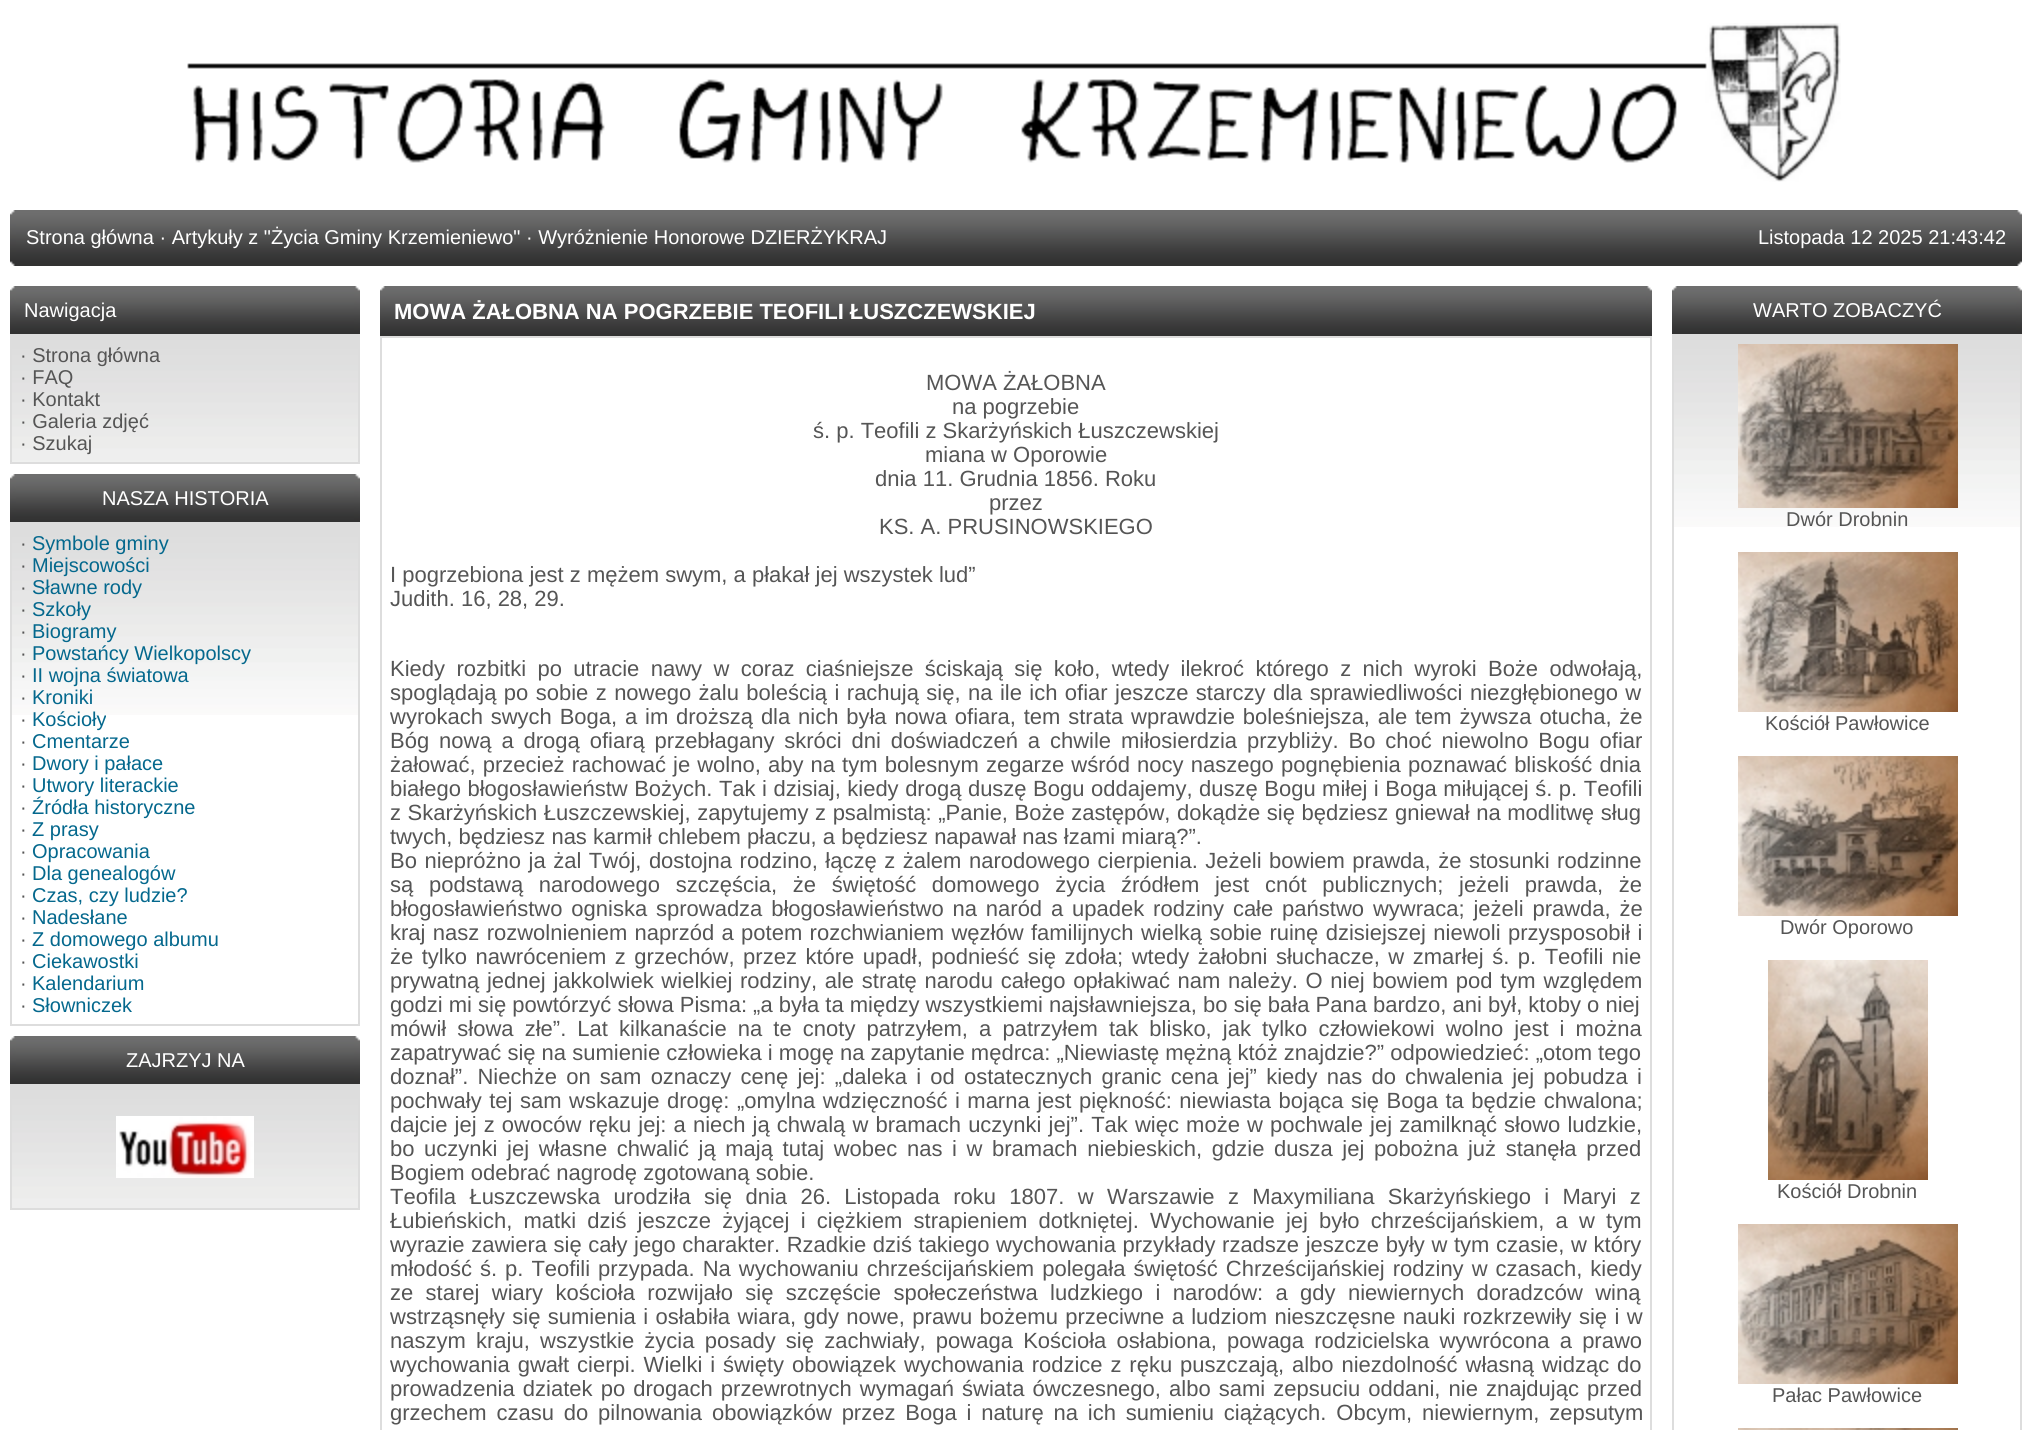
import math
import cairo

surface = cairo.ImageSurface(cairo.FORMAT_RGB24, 2032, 1430)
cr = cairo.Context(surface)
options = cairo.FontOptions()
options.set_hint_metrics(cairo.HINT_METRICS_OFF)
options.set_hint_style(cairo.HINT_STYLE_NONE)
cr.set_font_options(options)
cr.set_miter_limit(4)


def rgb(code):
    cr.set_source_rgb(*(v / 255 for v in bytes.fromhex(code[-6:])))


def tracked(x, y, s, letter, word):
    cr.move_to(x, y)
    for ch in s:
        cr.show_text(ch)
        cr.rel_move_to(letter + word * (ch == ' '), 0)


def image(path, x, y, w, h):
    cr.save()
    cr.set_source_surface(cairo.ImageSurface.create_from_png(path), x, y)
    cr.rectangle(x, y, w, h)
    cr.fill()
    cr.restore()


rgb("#ffffff")
cr.paint()
image("img/1.png", 187, 23, 1654, 159)
image("img/2.png", 10, 210, 6, 56)
image("img/3.png", 16, 210, 1534, 56)
image("img/4.png", 1550, 210, 466, 56)
image("img/5.png", 2016, 210, 6, 56)
image("img/6.png", 10, 286, 6, 48)
image("img/7.png", 16, 286, 338, 48)
image("img/8.png", 354, 286, 6, 48)
image("img/9.png", 12, 336, 346, 126)
cr.rectangle(11, 335, 348, 128)
rgb("#dddddd")
cr.stroke()
image("img/6.png", 10, 474, 6, 48)
image("img/7.png", 16, 474, 338, 48)
image("img/8.png", 354, 474, 6, 48)
image("img/10.png", 12, 524, 346, 191)
cr.rectangle(11, 523, 348, 502)
cr.stroke()
image("img/6.png", 10, 1036, 6, 48)
image("img/7.png", 16, 1036, 338, 48)
image("img/8.png", 354, 1036, 6, 48)
image("img/11.png", 12, 1086, 346, 122)
cr.rectangle(11, 1085, 348, 124)
cr.stroke()
image("img/12.png", 116, 1116, 138, 62)
image("img/13.png", 380, 286, 6, 50)
image("img/14.png", 386, 286, 1260, 50)
image("img/15.png", 1646, 286, 6, 50)
cr.rectangle(381, 337, 1270, 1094)
cr.stroke()
image("img/6.png", 1672, 286, 6, 48)
image("img/7.png", 1678, 286, 338, 48)
image("img/8.png", 2016, 286, 6, 48)
image("img/10.png", 1674, 336, 346, 191)
cr.rectangle(1673, 335, 348, 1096)
cr.stroke()
image("img/16.png", 1738, 344, 220, 164)
image("img/17.png", 1738, 552, 220, 160)
image("img/18.png", 1738, 756, 220, 160)
image("img/19.png", 1768, 960, 160, 220)
image("img/20.png", 1738, 1224, 220, 160)
image("img/21.png", 1738, 1428, 220, 2)
cr.select_font_face("Liberation Sans")
cr.set_font_size(20)
rgb("#ffffff")
for x, y, s in [
    (26, 244, "Strona główna · Artykuły z \"Życia Gminy Krzemieniewo\" · Wyróżnienie Honorowe DZIERŻYKRAJ"),
    (1758, 244, "Listopada 12 2025 21:43:42"),
    (24, 317, "Nawigacja"),
]:
    cr.move_to(x, y)
    cr.show_text(s)
rgb("#555555")
for x, y, s in [
    (20, 362, "· Strona główna"),
    (20, 384, "· FAQ"),
    (20, 406, "· Kontakt"),
    (20, 428, "· Galeria zdjęć"),
    (20, 450, "· Szukaj"),
]:
    cr.move_to(x, y)
    cr.show_text(s)
rgb("#ffffff")
cr.move_to(102, 505)
cr.show_text("NASZA HISTORIA")
rgb("#555555")
cr.move_to(20, 550)
cr.show_text("·")
rgb("#04688d")
cr.move_to(32, 550)
cr.show_text("Symbole gminy")
rgb("#555555")
cr.move_to(20, 572)
cr.show_text("·")
rgb("#04688d")
cr.move_to(32, 572)
cr.show_text("Miejscowości")
rgb("#555555")
cr.move_to(20, 594)
cr.show_text("·")
rgb("#04688d")
cr.move_to(32, 594)
cr.show_text("Sławne rody")
rgb("#555555")
cr.move_to(20, 616)
cr.show_text("·")
rgb("#04688d")
cr.move_to(32, 616)
cr.show_text("Szkoły")
rgb("#555555")
cr.move_to(20, 638)
cr.show_text("·")
rgb("#04688d")
cr.move_to(32, 638)
cr.show_text("Biogramy")
rgb("#555555")
cr.move_to(20, 660)
cr.show_text("·")
rgb("#04688d")
cr.move_to(32, 660)
cr.show_text("Powstańcy Wielkopolscy")
rgb("#555555")
cr.move_to(20, 682)
cr.show_text("·")
rgb("#04688d")
cr.move_to(32, 682)
cr.show_text("II wojna światowa")
rgb("#555555")
cr.move_to(20, 704)
cr.show_text("·")
rgb("#04688d")
cr.move_to(32, 704)
cr.show_text("Kroniki")
rgb("#555555")
cr.move_to(20, 726)
cr.show_text("·")
rgb("#04688d")
cr.move_to(32, 726)
cr.show_text("Kościoły")
rgb("#555555")
cr.move_to(20, 748)
cr.show_text("·")
rgb("#04688d")
cr.move_to(32, 748)
cr.show_text("Cmentarze")
rgb("#555555")
cr.move_to(20, 770)
cr.show_text("·")
rgb("#04688d")
cr.move_to(32, 770)
cr.show_text("Dwory i pałace")
rgb("#555555")
cr.move_to(20, 792)
cr.show_text("·")
rgb("#04688d")
cr.move_to(32, 792)
cr.show_text("Utwory literackie")
rgb("#555555")
cr.move_to(20, 814)
cr.show_text("·")
rgb("#04688d")
cr.move_to(32, 814)
cr.show_text("Źródła historyczne")
rgb("#555555")
cr.move_to(20, 836)
cr.show_text("·")
rgb("#04688d")
cr.move_to(32, 836)
cr.show_text("Z prasy")
rgb("#555555")
cr.move_to(20, 858)
cr.show_text("·")
rgb("#04688d")
cr.move_to(32, 858)
cr.show_text("Opracowania")
rgb("#555555")
cr.move_to(20, 880)
cr.show_text("·")
rgb("#04688d")
cr.move_to(32, 880)
cr.show_text("Dla genealogów")
rgb("#555555")
cr.move_to(20, 902)
cr.show_text("·")
rgb("#04688d")
cr.move_to(32, 902)
cr.show_text("Czas, czy ludzie?")
rgb("#555555")
cr.move_to(20, 924)
cr.show_text("·")
rgb("#04688d")
cr.move_to(32, 924)
cr.show_text("Nadesłane")
rgb("#555555")
cr.move_to(20, 946)
cr.show_text("·")
rgb("#04688d")
cr.move_to(32, 946)
cr.show_text("Z domowego albumu")
rgb("#555555")
cr.move_to(20, 968)
cr.show_text("·")
rgb("#04688d")
cr.move_to(32, 968)
cr.show_text("Ciekawostki")
rgb("#555555")
cr.move_to(20, 990)
cr.show_text("·")
rgb("#04688d")
cr.move_to(32, 990)
cr.show_text("Kalendarium")
rgb("#555555")
cr.move_to(20, 1012)
cr.show_text("·")
rgb("#04688d")
cr.move_to(32, 1012)
cr.show_text("Słowniczek")
rgb("#ffffff")
cr.move_to(126, 1067)
cr.show_text("ZAJRZYJ NA")
cr.select_font_face("Liberation Sans", cairo.FONT_SLANT_NORMAL, cairo.FONT_WEIGHT_BOLD)
cr.set_font_size(22)
cr.move_to(394, 319)
cr.show_text("MOWA ŻAŁOBNA NA POGRZEBIE TEOFILI ŁUSZCZEWSKIEJ")
cr.select_font_face("Liberation Sans")
rgb("#555555")
for x, y, s in [
    (926, 390, "MOWA ŻAŁOBNA"),
    (952, 414, "na pogrzebie"),
    (813, 438, "ś. p. Teofili z Skarżyńskich Łuszczewskiej"),
    (925, 462, "miana w Oporowie"),
    (875, 486, "dnia 11. Grudnia 1856. Roku"),
    (989, 510, "przez"),
    (879, 534, "KS. A. PRUSINOWSKIEGO"),
    (390, 582, "I pogrzebiona jest z mężem swym, a płakał jej wszystek lud”"),
    (390, 606, "Judith. 16, 28, 29."),
]:
    cr.move_to(x, y)
    cr.show_text(s)
tracked(390, 676, "Kiedy rozbitki po utracie nawy w coraz ciaśniejsze ściskają się koło, wtedy ilekroć którego z nich wyroki Boże odwołają,", 0, 5.25)
tracked(390, 700, "spoglądają po sobie z nowego żalu boleścią i rachują się, na ile ich ofiar jeszcze starczy dla sprawiedliwości niezgłębionego w", 0, 1.3)
tracked(390, 724, "wyrokach swych Boga, a im droższą dla nich była nowa ofiara, tem strata wprawdzie boleśniejsza, ale tem żywsza otucha, że", 0, 1.7)
tracked(390, 748, "Bóg nową a drogą ofiarą przebłagany skróci dni doświadczeń a chwile miłosierdzia przybliży. Bo choć niewolno Bogu ofiar", 0, 3.75)
tracked(390, 772, "żałować, przecież rachować je wolno, aby na tym bolesnym zegarze wśród nocy naszego pognębienia poznawać bliskość dnia", 0, 1)
tracked(390, 796, "białego błogosławieństw Bożych. Tak i dzisiaj, kiedy drogą duszę Bogu oddajemy, duszę Bogu miłej i Boga miłującej ś. p. Teofili", 0, 0.4)
tracked(390, 820, "z Skarżyńskich Łuszczewskiej, zapytujemy z psalmistą: „Panie, Boże zastępów, dokądże się będziesz gniewał na modlitwę sług", 0, 0.5)
cr.move_to(390, 844)
cr.show_text("twych, będziesz nas karmił chlebem płaczu, a będziesz napawał nas łzami miarą?”.")
tracked(390, 868, "Bo niepróżno ja żal Twój, dostojna rodzino, łączę z żalem narodowego cierpienia. Jeżeli bowiem prawda, że stosunki rodzinne", 0, 1.4)
tracked(390, 892, "są podstawą narodowego szczęścia, że świętość domowego życia źródłem jest cnót publicznych; jeżeli prawda, że", 0, 9.6)
tracked(390, 916, "błogosławieństwo ogniska sprowadza błogosławieństwo na naród a upadek rodziny całe państwo wywraca; jeżeli prawda, że", 0, 2.75)
tracked(390, 940, "kraj nasz rozwolnieniem naprzód a potem rozchwianiem węzłów familijnych wielką sobie ruinę dzisiejszej niewoli przysposobił i", 0, 1.25)
tracked(390, 964, "że tylko nawróceniem z grzechów, przez które upadł, podnieść się zdoła; wtedy żałobni słuchacze, w zmarłej ś. p. Teofili nie", 0, 2.4)
tracked(390, 988, "prywatną jednej jakkolwiek wielkiej rodziny, ale stratę narodu całego opłakiwać nam należy. O niej bowiem pod tym względem", 0, 1.6)
cr.move_to(390, 1012)
cr.show_text("godzi mi się powtórzyć słowa Pisma: „a była ta między wszystkiemi najsławniejsza, bo się bała Pana bardzo, ani był, ktoby o niej")
tracked(390, 1036, "mówił słowa złe”. Lat kilkanaście na te cnoty patrzyłem, a patrzyłem tak blisko, jak tylko człowiekowi wolno jest i można", 0, 5)
cr.move_to(390, 1060)
cr.show_text("zapatrywać się na sumienie człowieka i mogę na zapytanie mędrca: „Niewiastę mężną któż znajdzie?” odpowiedzieć: „otom tego")
tracked(390, 1084, "doznał”. Niechże on sam oznaczy cenę jej: „daleka i od ostatecznych granic cena jej” kiedy nas do chwalenia jej pobudza i", 0, 3.1)
tracked(390, 1108, "pochwały tej sam wskazuje drogę: „omylna wdzięczność i marna jest piękność: niewiasta bojąca się Boga ta będzie chwalona;", 0, 1.4)
tracked(390, 1132, "dajcie jej z owoców ręku jej: a niech ją chwalą w bramach uczynki jej”. Tak więc może w pochwale jej zamilknąć słowo ludzkie,", 0, 1)
tracked(390, 1156, "bo uczynki jej własne chwalić ją mają tutaj wobec nas i w bramach niebieskich, gdzie dusza jej pobożna już stanęła przed", 0, 3.5)
cr.move_to(390, 1180)
cr.show_text("Bogiem odebrać nagrodę zgotowaną sobie.")
tracked(390, 1204, "Teofila Łuszczewska urodziła się dnia 26. Listopada roku 1807. w Warszawie z Maxymiliana Skarżyńskiego i Maryi z", 0, 7.25)
tracked(390, 1228, "Łubieńskich, matki dziś jeszcze żyjącej i ciężkiem strapieniem dotkniętej. Wychowanie jej było chrześcijańskiem, a w tym", 0, 5.1)
tracked(390, 1252, "wyrazie zawiera się cały jego charakter. Rzadkie dziś takiego wychowania przykłady rzadsze jeszcze były w tym czasie, w który", 0, 0.5)
tracked(390, 1276, "młodość ś. p. Teofili przypada. Na wychowaniu chrześcijańskiem polegała świętość Chrześcijańskiej rodziny w czasach, kiedy", 0, 1.9)
tracked(390, 1300, "ze starej wiary kościoła rozwijało się szczęście społeczeństwa ludzkiego i narodów: a gdy niewiernych doradzców winą", 0, 6.25)
tracked(390, 1324, "wstrząsnęły się sumienia i osłabiła wiara, gdy nowe, prawu bożemu przeciwne a ludziom nieszczęsne nauki rozkrzewiły się i w", 0, 1.25)
tracked(390, 1348, "naszym kraju, wszystkie życia posady się zachwiały, powaga Kościoła osłabiona, powaga rodzicielska wywrócona a prawo", 0, 4.1)
tracked(390, 1372, "wychowania gwałt cierpi. Wielki i święty obowiązek wychowania rodzice z ręku puszczają, albo niezdolność własną widząc do", 0, 1.8)
tracked(390, 1396, "prowadzenia dziatek po drogach przewrotnych wymagań świata ówczesnego, albo sami zepsuciu oddani, nie znajdując przed", 0, 2)
tracked(390, 1420, "grzechem czasu do pilnowania obowiązków przez Boga i naturę na ich sumieniu ciążących. Obcym, niewiernym, zepsutym", 0, 3.75)
cr.set_font_size(20)
rgb("#ffffff")
cr.move_to(1753, 317)
cr.show_text("WARTO ZOBACZYĆ")
rgb("#555555")
for x, y, s in [
    (1786, 526, "Dwór Drobnin"),
    (1765, 730, "Kościół Pawłowice"),
    (1780, 934, "Dwór Oporowo"),
    (1777, 1198, "Kościół Drobnin"),
    (1772, 1402, "Pałac Pawłowice"),
]:
    cr.move_to(x, y)
    cr.show_text(s)
surface.write_to_png("page.png")
